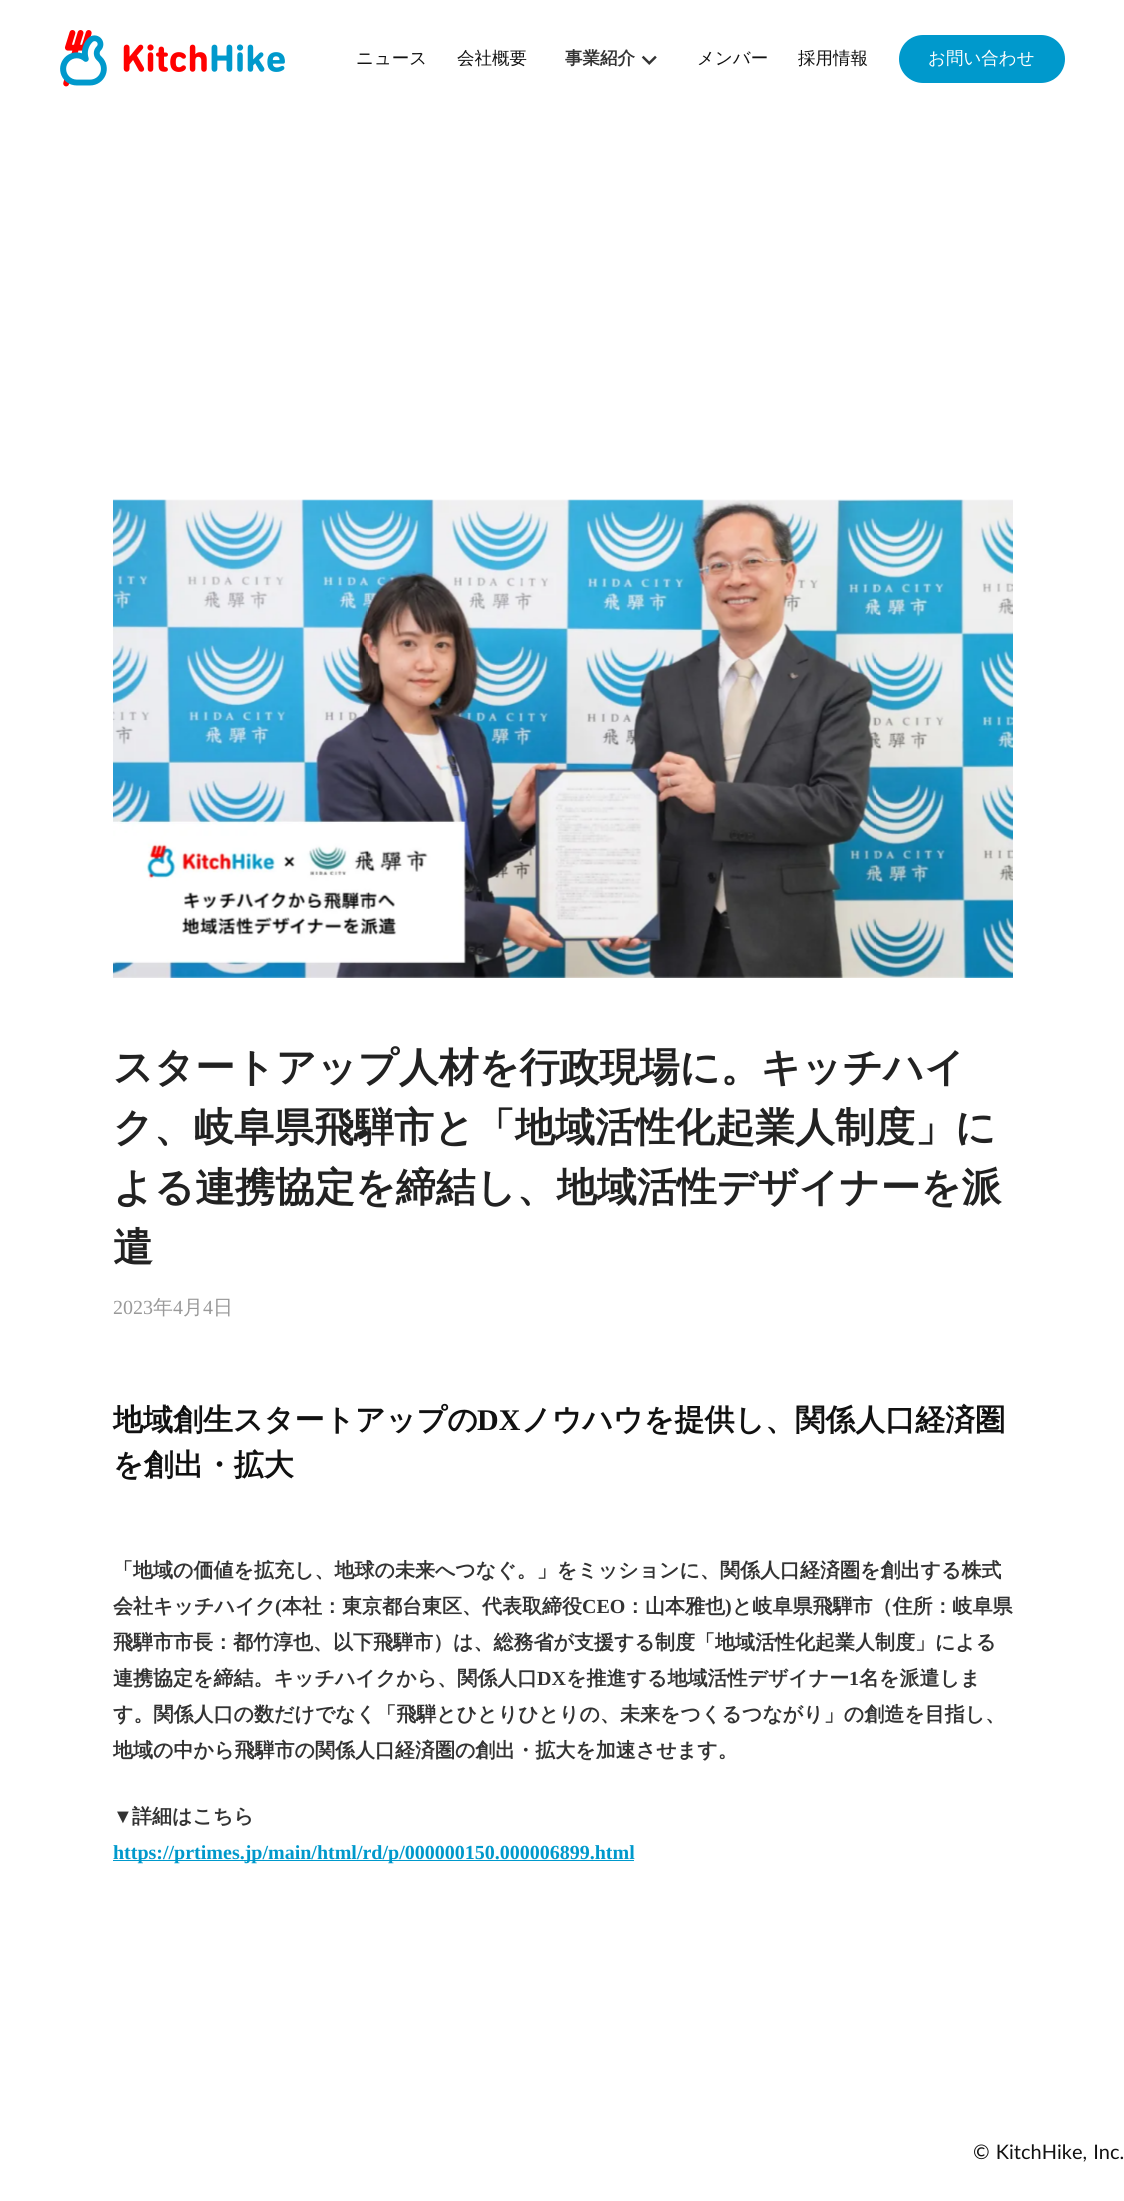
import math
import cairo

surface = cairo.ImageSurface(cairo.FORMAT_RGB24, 1124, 2201)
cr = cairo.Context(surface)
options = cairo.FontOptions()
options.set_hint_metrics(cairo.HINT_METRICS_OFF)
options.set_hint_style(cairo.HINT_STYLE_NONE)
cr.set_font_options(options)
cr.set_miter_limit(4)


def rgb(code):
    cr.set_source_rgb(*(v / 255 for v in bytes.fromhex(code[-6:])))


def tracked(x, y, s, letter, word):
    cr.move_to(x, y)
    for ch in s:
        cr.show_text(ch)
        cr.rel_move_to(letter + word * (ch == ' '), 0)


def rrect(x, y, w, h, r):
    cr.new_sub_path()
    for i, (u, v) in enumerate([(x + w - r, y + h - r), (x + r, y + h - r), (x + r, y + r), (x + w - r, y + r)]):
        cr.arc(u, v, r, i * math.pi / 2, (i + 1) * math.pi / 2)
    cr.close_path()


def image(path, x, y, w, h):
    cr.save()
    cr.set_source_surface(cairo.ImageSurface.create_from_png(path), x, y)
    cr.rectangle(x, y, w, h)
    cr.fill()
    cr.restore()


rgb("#ffffff")
cr.paint()
image("img/1.png", 60, 30, 225, 57)
image("img/2.png", 641, 55, 16, 10)
rgb("#0099cc")
rrect(899, 35, 166, 48, 24)
cr.fill()
image("img/3.png", 113, 499, 900, 479)
cr.rectangle(113, 1860, 521, 1)
cr.fill()
cr.select_font_face("WenQuanYi Zen Hei Medium")
cr.set_font_size(17.5)
rgb("#111111")
cr.move_to(356, 64)
cr.show_text("ニュース")
cr.move_to(457, 64)
cr.show_text("会社概要")
cr.select_font_face("WenQuanYi Zen Hei", cairo.FONT_SLANT_NORMAL, cairo.FONT_WEIGHT_BOLD)
rgb("#333333")
cr.move_to(565, 64)
cr.show_text("事業紹介")
cr.select_font_face("WenQuanYi Zen Hei Medium")
rgb("#111111")
cr.move_to(697, 64)
cr.show_text("メンバー")
cr.move_to(798, 64)
cr.show_text("採用情報")
rgb("#ffffff")
cr.move_to(928, 64)
cr.show_text("お問い合わせ")
cr.select_font_face("WenQuanYi Zen Hei", cairo.FONT_SLANT_NORMAL, cairo.FONT_WEIGHT_BOLD)
cr.set_font_size(40)
rgb("#222222")
for x, y, s in [
    (113, 1081, "スタートアップ人材を行政現場に。キッチハイ"),
    (113, 1141, "ク、岐阜県飛騨市と「地域活性化起業人制度」に"),
    (113, 1201, "よる連携協定を締結し、地域活性デザイナーを派"),
    (113, 1261, "遣"),
]:
    cr.move_to(x, y)
    cr.show_text(s)
cr.select_font_face("Liberation Serif")
cr.set_font_size(20)
rgb("#999999")
cr.move_to(113, 1314)
cr.show_text("2023")
cr.select_font_face("WenQuanYi Zen Hei Medium")
cr.move_to(153, 1314)
cr.show_text("年")
cr.select_font_face("Liberation Serif")
cr.move_to(173, 1314)
cr.show_text("4")
cr.select_font_face("WenQuanYi Zen Hei Medium")
cr.move_to(183, 1314)
cr.show_text("月")
cr.select_font_face("Liberation Serif")
cr.move_to(203, 1314)
cr.show_text("4")
cr.select_font_face("WenQuanYi Zen Hei Medium")
cr.move_to(213, 1314)
cr.show_text("日")
cr.select_font_face("WenQuanYi Zen Hei", cairo.FONT_SLANT_NORMAL, cairo.FONT_WEIGHT_BOLD)
cr.set_font_size(30)
rgb("#111111")
cr.move_to(113, 1430)
cr.show_text("地域創生スタートアップの")
cr.select_font_face("Liberation Serif", cairo.FONT_SLANT_NORMAL, cairo.FONT_WEIGHT_BOLD)
cr.move_to(477, 1430)
cr.show_text("DX")
cr.select_font_face("WenQuanYi Zen Hei", cairo.FONT_SLANT_NORMAL, cairo.FONT_WEIGHT_BOLD)
cr.move_to(521, 1430)
cr.show_text("ノウハウを提供し、関係人口経済圏")
cr.move_to(113, 1475)
cr.show_text("を創出・拡大")
cr.set_font_size(20)
rgb("#333333")
cr.move_to(113, 1577)
cr.show_text("「地域の価値を拡充し、地球の未来へつなぐ。」をミッションに、関係人口経済圏を創出する株式")
cr.move_to(113, 1613)
cr.show_text("会社キッチハイク")
cr.select_font_face("Liberation Serif", cairo.FONT_SLANT_NORMAL, cairo.FONT_WEIGHT_BOLD)
cr.move_to(275, 1613)
cr.show_text("(")
cr.select_font_face("WenQuanYi Zen Hei", cairo.FONT_SLANT_NORMAL, cairo.FONT_WEIGHT_BOLD)
cr.move_to(282, 1613)
cr.show_text("本社：東京都台東区、代表取締役")
cr.select_font_face("Liberation Serif", cairo.FONT_SLANT_NORMAL, cairo.FONT_WEIGHT_BOLD)
cr.move_to(582, 1613)
cr.show_text("CEO")
cr.select_font_face("WenQuanYi Zen Hei", cairo.FONT_SLANT_NORMAL, cairo.FONT_WEIGHT_BOLD)
cr.move_to(625, 1613)
cr.show_text("：山本雅也")
cr.select_font_face("Liberation Serif", cairo.FONT_SLANT_NORMAL, cairo.FONT_WEIGHT_BOLD)
cr.move_to(725, 1613)
cr.show_text(")")
cr.select_font_face("WenQuanYi Zen Hei", cairo.FONT_SLANT_NORMAL, cairo.FONT_WEIGHT_BOLD)
for x, y, s in [
    (732, 1613, "と岐阜県飛騨市（住所：岐阜県"),
    (113, 1649, "飛騨市市長：都竹淳也、以下飛騨市）は、総務省が支援する制度「地域活性化起業人制度」による"),
    (113, 1685, "連携協定を締結。キッチハイクから、関係人口"),
]:
    cr.move_to(x, y)
    cr.show_text(s)
cr.select_font_face("Liberation Serif", cairo.FONT_SLANT_NORMAL, cairo.FONT_WEIGHT_BOLD)
cr.move_to(537, 1685)
cr.show_text("DX")
cr.select_font_face("WenQuanYi Zen Hei", cairo.FONT_SLANT_NORMAL, cairo.FONT_WEIGHT_BOLD)
cr.move_to(566, 1685)
cr.show_text("を推進する地域活性デザイナー")
cr.select_font_face("Liberation Serif", cairo.FONT_SLANT_NORMAL, cairo.FONT_WEIGHT_BOLD)
cr.move_to(849, 1685)
cr.show_text("1")
cr.select_font_face("WenQuanYi Zen Hei", cairo.FONT_SLANT_NORMAL, cairo.FONT_WEIGHT_BOLD)
for x, y, s in [
    (859, 1685, "名を派遣しま"),
    (113, 1721, "す。関係人口の数だけでなく「飛騨とひとりひとりの、未来をつくるつながり」の創造を目指し、"),
    (113, 1757, "地域の中から飛騨市の関係人口経済圏の創出・拡大を加速させます。"),
]:
    cr.move_to(x, y)
    cr.show_text(s)
cr.select_font_face("Liberation Serif", cairo.FONT_SLANT_NORMAL, cairo.FONT_WEIGHT_BOLD)
cr.move_to(113, 1823)
cr.show_text("▼")
cr.select_font_face("WenQuanYi Zen Hei", cairo.FONT_SLANT_NORMAL, cairo.FONT_WEIGHT_BOLD)
cr.move_to(132, 1823)
cr.show_text("詳細はこちら")
cr.select_font_face("Liberation Serif", cairo.FONT_SLANT_NORMAL, cairo.FONT_WEIGHT_BOLD)
rgb("#0099cc")
cr.move_to(113, 1859)
cr.show_text("https://prtimes.jp/main/html/rd/p/000000150.000006899.html")
cr.select_font_face("Lato")
rgb("#111111")
tracked(973, 2159, "© KitchHike, Inc.", 0, 1)
surface.write_to_png("page.png")
